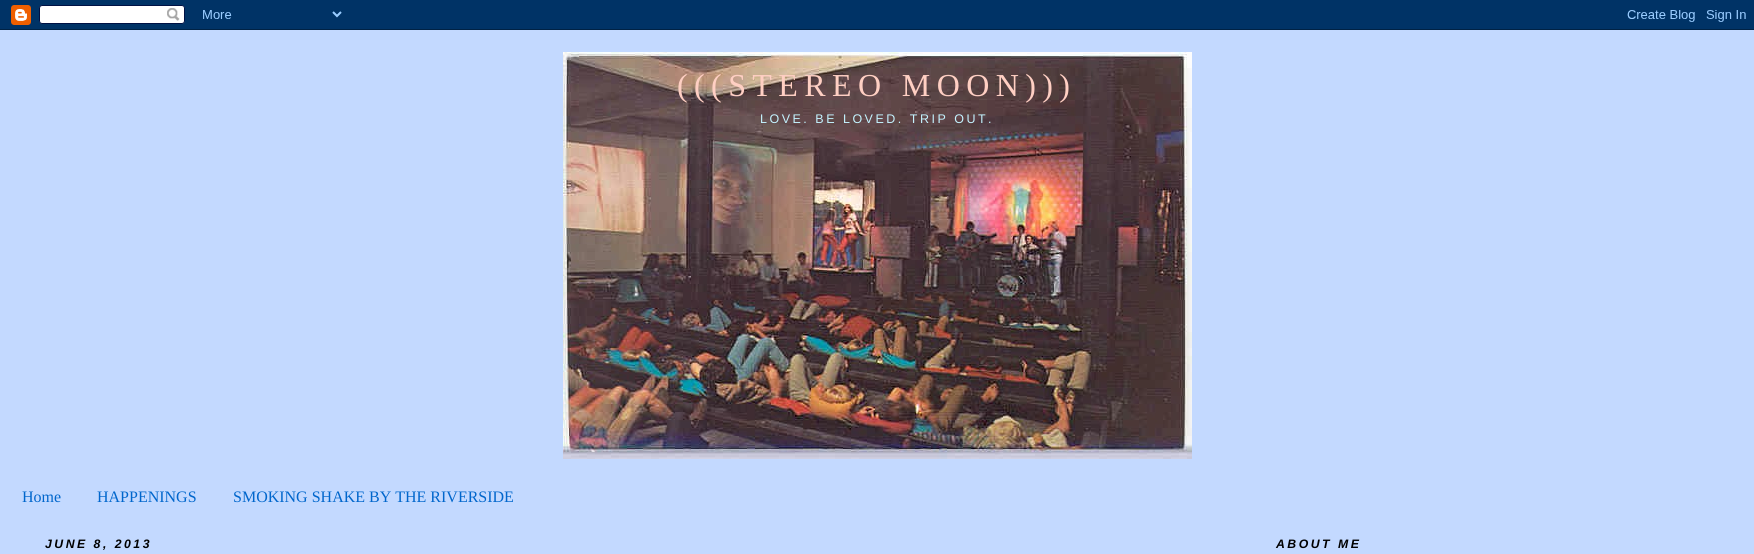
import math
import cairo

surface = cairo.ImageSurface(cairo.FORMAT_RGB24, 1754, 554)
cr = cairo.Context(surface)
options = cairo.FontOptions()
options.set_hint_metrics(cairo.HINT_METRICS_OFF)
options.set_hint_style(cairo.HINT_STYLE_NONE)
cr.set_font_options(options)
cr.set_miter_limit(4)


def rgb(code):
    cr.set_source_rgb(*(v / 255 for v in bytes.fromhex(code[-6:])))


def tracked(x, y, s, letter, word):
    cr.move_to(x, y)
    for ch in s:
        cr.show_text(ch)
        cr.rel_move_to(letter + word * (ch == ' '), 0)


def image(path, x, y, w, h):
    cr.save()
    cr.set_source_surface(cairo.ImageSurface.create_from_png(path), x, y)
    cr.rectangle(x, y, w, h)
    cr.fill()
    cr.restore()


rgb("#c3d9ff")
cr.paint()
image("img/1.png", 0, 0, 1754, 30)
image("img/2.png", 563, 52, 629, 407)
cr.select_font_face("Liberation Serif")
cr.set_font_size(32)
rgb("#ffcfc3")
tracked(677, 96, "(((STEREO MOON)))", 6.4, 0)
cr.select_font_face("Liberation Sans")
cr.set_font_size(12.5)
rgb("#c3f3ff")
tracked(760, 123, "LOVE. BE LOVED. TRIP OUT.", 2.5, 0)
cr.select_font_face("Liberation Serif")
cr.set_font_size(16)
rgb("#0066cc")
for x, y, s in [
    (22, 502, "Home"),
    (97, 502, "HAPPENINGS"),
    (233, 502, "SMOKING SHAKE BY THE RIVERSIDE"),
]:
    cr.move_to(x, y)
    cr.show_text(s)
cr.select_font_face("Liberation Sans", cairo.FONT_SLANT_ITALIC, cairo.FONT_WEIGHT_BOLD)
cr.set_font_size(12.25)
rgb("#000000")
tracked(45, 548, "JUNE 8, 2013", 2.5, 0)
tracked(1276, 548, "ABOUT ME", 2.5, 0)
surface.write_to_png("page.png")
